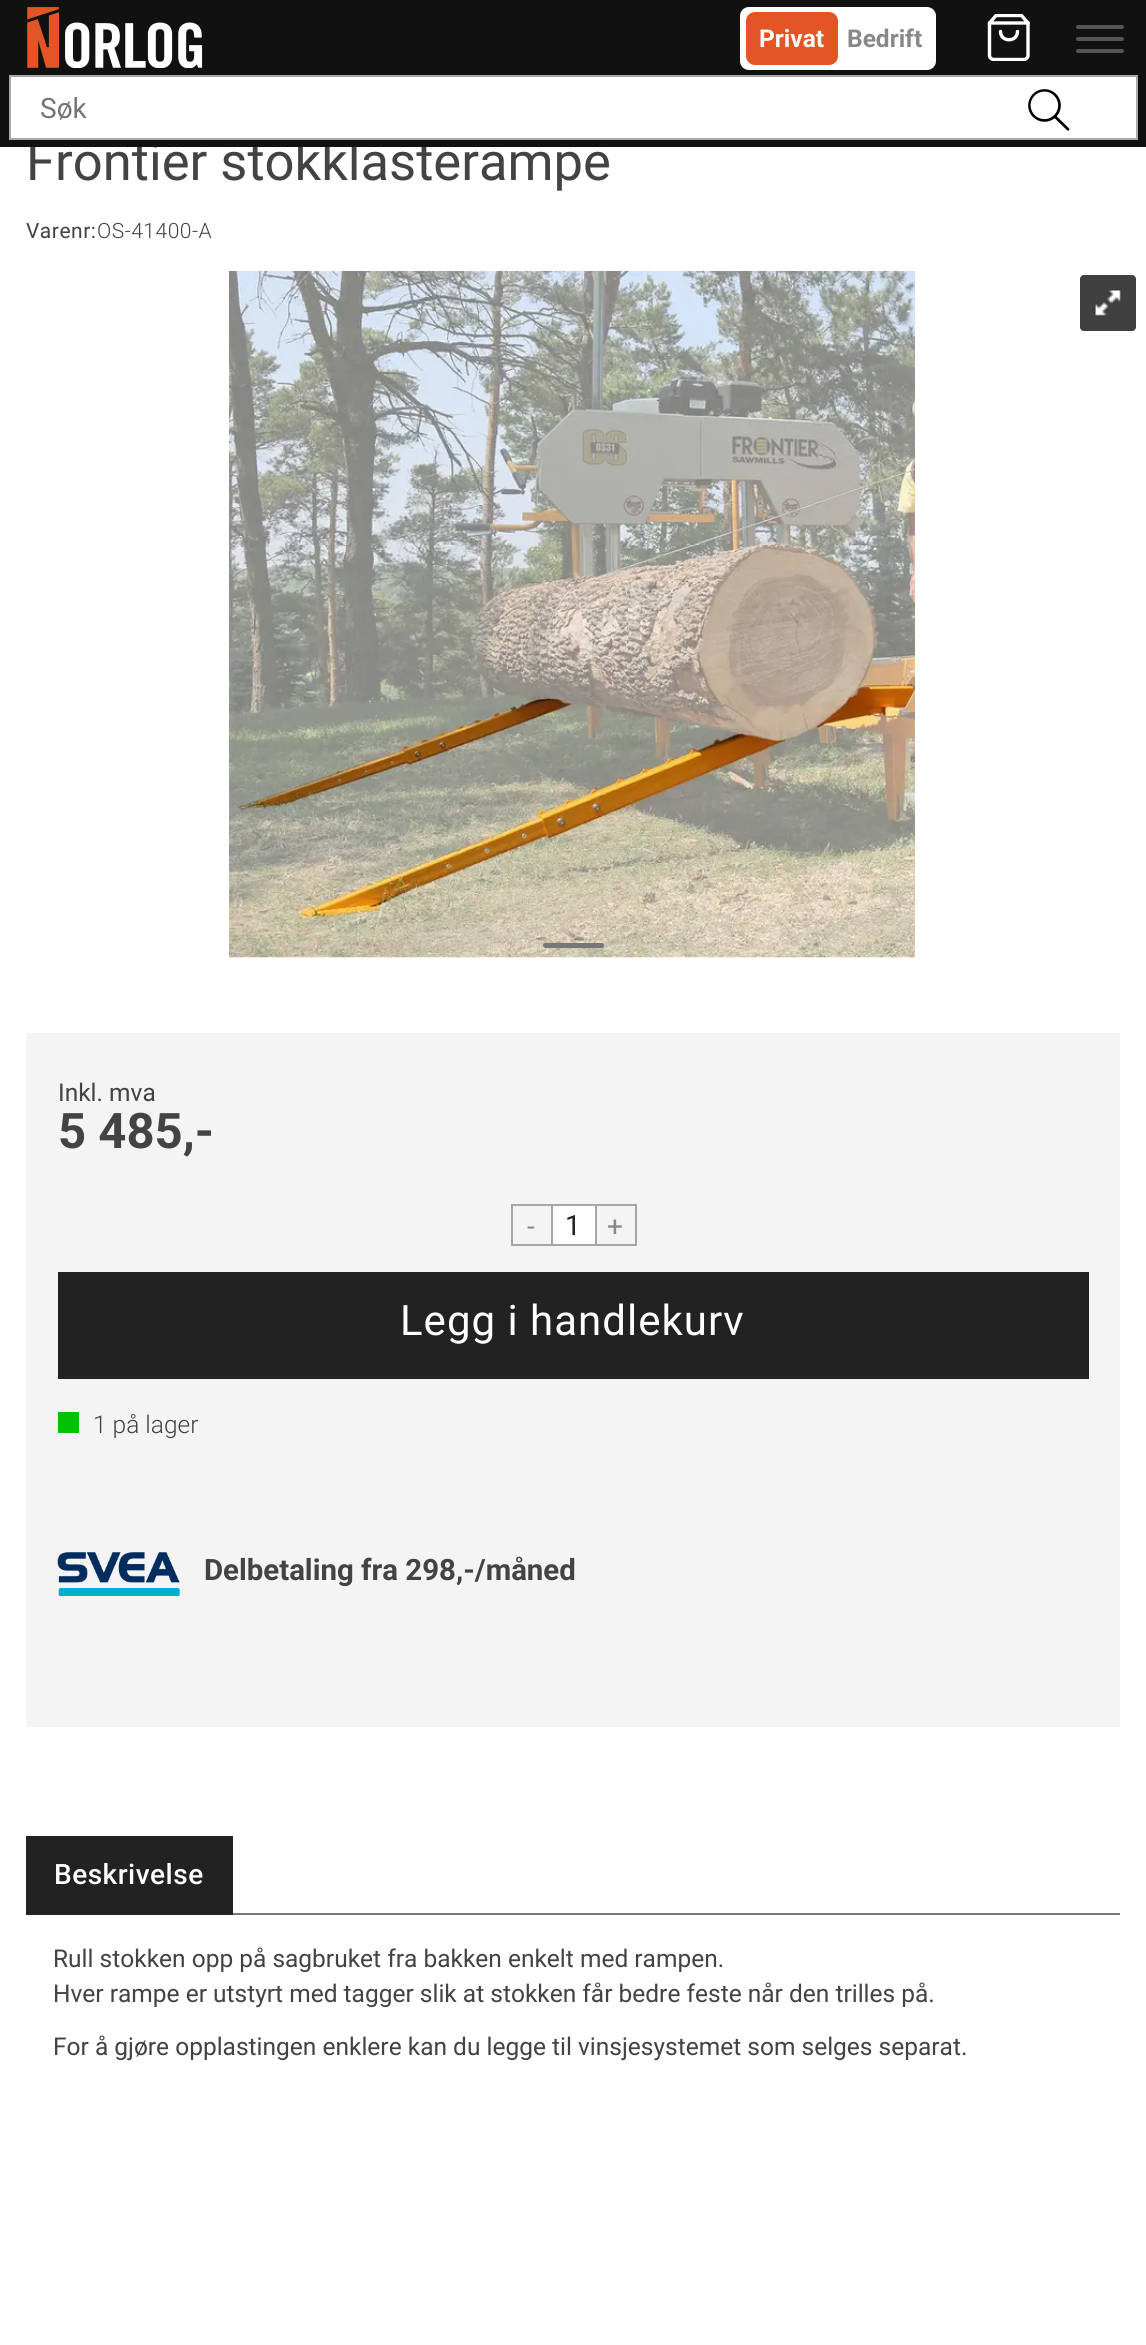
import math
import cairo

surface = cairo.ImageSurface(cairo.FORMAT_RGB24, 1146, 2345)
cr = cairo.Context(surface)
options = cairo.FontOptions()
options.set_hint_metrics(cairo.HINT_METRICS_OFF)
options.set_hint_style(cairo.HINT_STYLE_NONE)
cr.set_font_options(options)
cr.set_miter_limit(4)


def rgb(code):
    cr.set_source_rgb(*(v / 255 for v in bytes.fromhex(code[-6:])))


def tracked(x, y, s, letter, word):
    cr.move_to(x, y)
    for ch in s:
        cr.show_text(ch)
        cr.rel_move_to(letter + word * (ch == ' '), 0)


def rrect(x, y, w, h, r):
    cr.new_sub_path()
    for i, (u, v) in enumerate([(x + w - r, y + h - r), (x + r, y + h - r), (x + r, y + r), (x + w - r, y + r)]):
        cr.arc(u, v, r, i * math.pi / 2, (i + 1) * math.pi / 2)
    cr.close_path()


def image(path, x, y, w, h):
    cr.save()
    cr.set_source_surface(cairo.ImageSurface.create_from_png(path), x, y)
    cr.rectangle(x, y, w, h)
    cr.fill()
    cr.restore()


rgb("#ffffff")
cr.paint()
image("img/3.png", 229, 271, 686, 687)
rgb("#404040")
rrect(1080, 275, 56, 56, 4)
cr.fill()
image("img/4.png", 1094, 289, 28, 28)
rgb("#777777")
rrect(543, 943, 61, 5, 2.5)
cr.fill()
rgb("#f4f4f4")
cr.rectangle(26, 1033, 1094, 694)
cr.fill()
cr.rectangle(512, 1205, 40, 40)
rgb("#a6a6a6")
cr.stroke()
for x, y, w, h, color in [
    (553, 1206, 42, 38, "#ffffff"),
    (553, 1204, 42, 2, "#a6a6a6"),
    (553, 1244, 42, 2, "#a6a6a6"),
]:
    rgb(color)
    cr.rectangle(x, y, w, h)
    cr.fill()
cr.rectangle(596, 1205, 40, 40)
cr.stroke()
rgb("#222222")
cr.rectangle(58, 1272, 1031, 107)
cr.fill()
rgb("#00c200")
cr.rectangle(58, 1412, 21, 21)
cr.fill()
image("img/5.png", 57, 1552, 123, 44)
rgb("#777777")
cr.rectangle(233, 1913, 887, 2)
cr.fill()
rgb("#222222")
cr.rectangle(26, 1836, 207, 79)
cr.fill()
cr.select_font_face("Roboto")
cr.set_font_size(52.5)
rgb("#434244")
cr.move_to(26, 180)
cr.show_text("Frontier stokklasterampe")
rgb("#111111")
cr.rectangle(0, 0, 1146, 147)
cr.fill()
rgb("#ffffff")
cr.rectangle(10, 76, 1127, 63)
cr.fill_preserve()
rgb("#aaaaaa")
cr.stroke()
cr.set_font_size(28)
rgb("#757575")
cr.move_to(40, 118)
cr.show_text("Søk")
image("img/2.png", 1028, 89, 42, 42)
rgb("#555555")
rrect(1076, 49, 48, 4, 2)
cr.fill()
rrect(1076, 37, 48, 4, 2)
cr.fill()
rrect(1076, 25, 48, 4, 2)
cr.fill()
rgb("#ffffff")
rrect(742.5, 9.5, 191, 58, 6.5)
cr.fill_preserve()
cr.set_line_width(5)
cr.stroke()
cr.select_font_face("Roboto", cairo.FONT_SLANT_NORMAL, cairo.FONT_WEIGHT_BOLD)
cr.set_font_size(24.5)
rgb("#888888")
cr.move_to(847, 47)
cr.show_text("Bedrift")
rgb("#e45525")
rrect(746, 12, 92, 53, 9)
cr.fill()
rgb("#ffffff")
cr.move_to(759, 47)
cr.show_text("Privat")
image("img/1.png", 27, 7, 176, 61)
cr.save()
cr.rectangle(985, 14, 48, 47)
cr.clip()
cr.new_path()
cr.move_to(996, 15.5)
cr.line_to(989.5, 23)
cr.line_to(989.5, 55.5)
cr.curve_to(989.5, 57.5, 991.5, 59.5, 994, 59.5)
cr.line_to(1024, 59.5)
cr.curve_to(1026, 59.5, 1028, 57.5, 1028, 55.5)
cr.line_to(1028, 23)
cr.line_to(1021.5, 15.5)
cr.close_path()
cr.set_line_width(3.4)
cr.set_line_cap(cairo.LINE_CAP_ROUND)
cr.set_line_join(cairo.LINE_JOIN_ROUND)
cr.stroke()
cr.restore()
cr.new_path()
cr.move_to(989.5, 23)
cr.line_to(1028, 23)
cr.move_to(1017.5, 31.5)
cr.curve_to(1017.5, 42.5, 1000.5, 42.5, 1000.5, 31.5)
cr.set_line_width(3.4)
cr.set_line_cap(cairo.LINE_CAP_ROUND)
cr.set_line_join(cairo.LINE_JOIN_ROUND)
cr.stroke()
cr.select_font_face("Roboto")
cr.set_font_size(21)
rgb("#434244")
tracked(26, 238, "Varenr:", 0.5, 0)
cr.select_font_face("Roboto Light")
tracked(97, 238, "OS-41400-A", 0.5, 0)
cr.select_font_face("Roboto")
cr.set_font_size(24.5)
cr.move_to(58, 1101)
cr.show_text("Inkl. mva")
cr.select_font_face("Roboto", cairo.FONT_SLANT_NORMAL, cairo.FONT_WEIGHT_BOLD)
cr.set_font_size(49)
cr.move_to(58, 1148)
cr.show_text("5 485,-")
cr.select_font_face("Roboto")
cr.set_font_size(28)
rgb("#888888")
cr.move_to(527, 1236)
cr.show_text("-")
rgb("#222222")
cr.move_to(565, 1235)
cr.show_text("1")
rgb("#888888")
cr.move_to(607, 1236)
cr.show_text("+")
cr.set_font_size(42)
rgb("#ffffff")
tracked(400, 1335, "Legg i handlekurv", 1, 0)
cr.select_font_face("Roboto Light")
cr.set_font_size(24.5)
rgb("#434244")
cr.move_to(93, 1433)
cr.show_text("1 på lager")
cr.select_font_face("Roboto", cairo.FONT_SLANT_NORMAL, cairo.FONT_WEIGHT_BOLD)
cr.set_font_size(29.4)
cr.move_to(204, 1580)
cr.show_text("Delbetaling fra 298,-/måned")
cr.select_font_face("Roboto Medium")
cr.set_font_size(28)
rgb("#ffffff")
tracked(54, 1884, "Beskrivelse", 0.5, 0)
cr.select_font_face("Roboto")
cr.set_font_size(24.5)
rgb("#434244")
for x, y, s in [
    (53, 1967, "Rull stokken opp på sagbruket fra bakken enkelt med rampen."),
    (53, 2002, "Hver rampe er utstyrt med tagger slik at stokken får bedre feste når den trilles på."),
    (53, 2055, "For å gjøre opplastingen enklere kan du legge til vinsjesystemet som selges separat."),
]:
    cr.move_to(x, y)
    cr.show_text(s)
surface.write_to_png("page.png")
